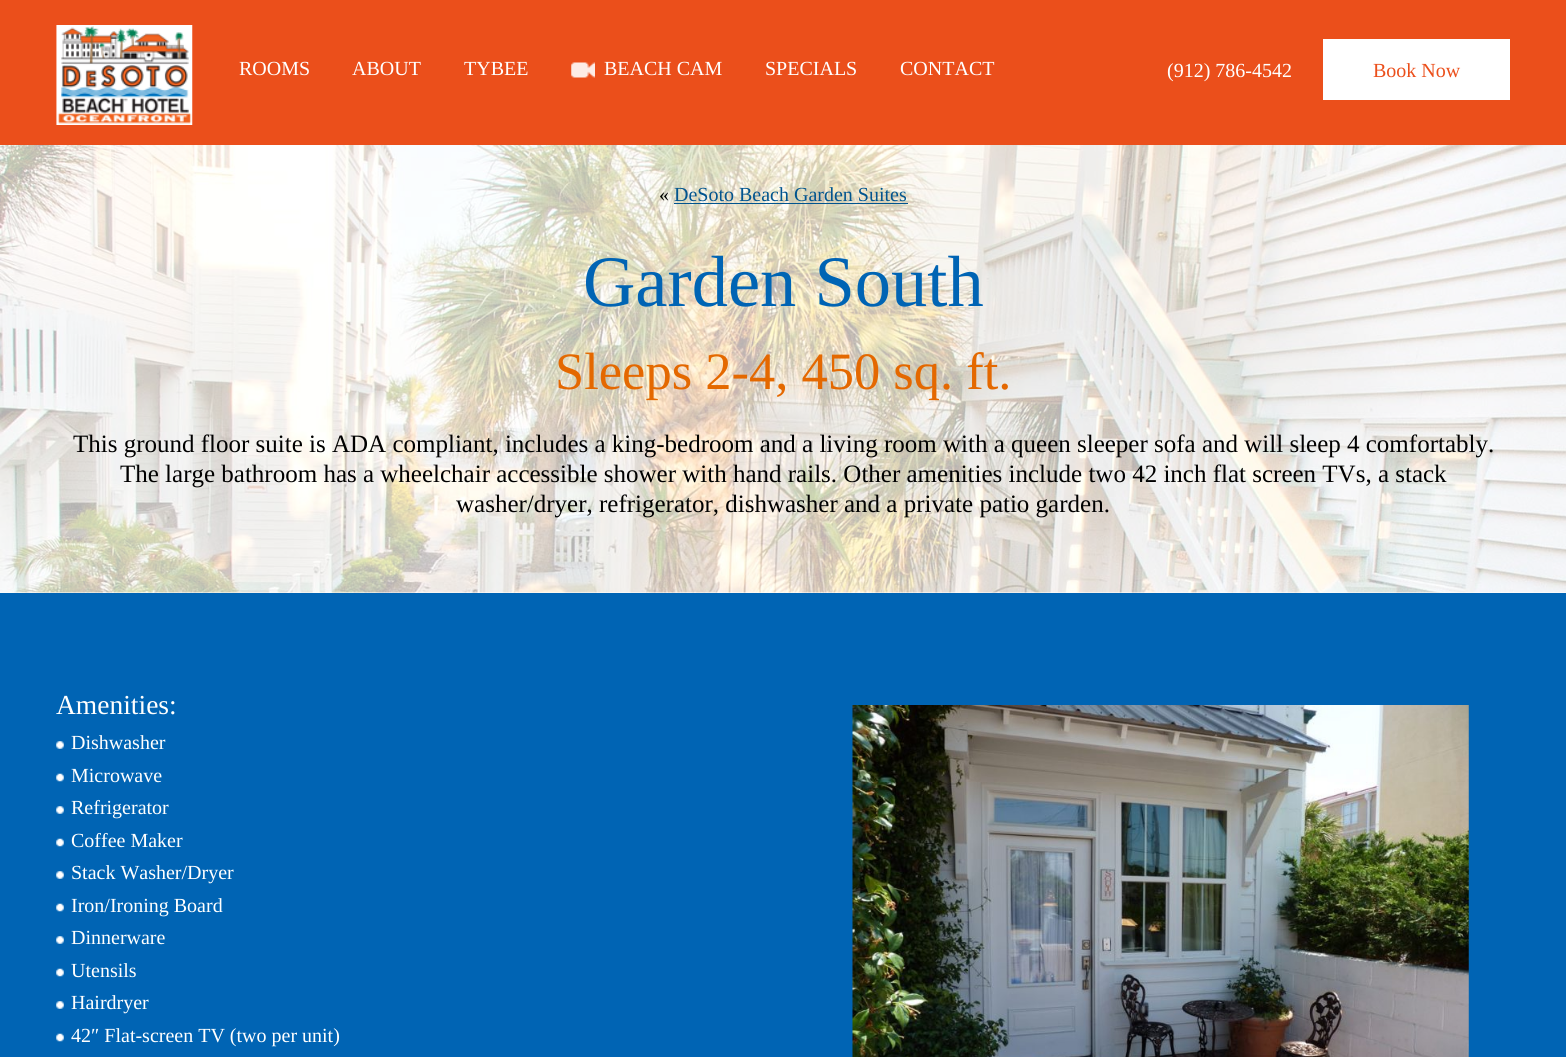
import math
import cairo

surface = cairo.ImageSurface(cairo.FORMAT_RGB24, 1566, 1057)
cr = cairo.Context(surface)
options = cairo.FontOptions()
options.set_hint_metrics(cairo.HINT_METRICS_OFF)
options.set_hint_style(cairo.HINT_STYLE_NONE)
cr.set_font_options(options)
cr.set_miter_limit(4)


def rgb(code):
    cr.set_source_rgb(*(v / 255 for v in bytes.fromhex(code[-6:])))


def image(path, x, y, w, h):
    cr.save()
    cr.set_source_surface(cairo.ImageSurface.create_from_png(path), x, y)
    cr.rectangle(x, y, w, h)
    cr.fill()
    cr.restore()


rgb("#eb4f1b")
cr.paint()
image("img/1.png", 56, 25, 137, 100)
image("img/2.png", 571, 62, 24, 16)
rgb("#ffffff")
cr.rectangle(1323, 39, 187, 61)
cr.fill()
cr.rectangle(0, 592, 1566, 1)
cr.fill()
image("img/3.png", 0, 145, 1566, 448)
rgb("#01548e")
cr.rectangle(674, 203, 234, 1)
cr.fill()
rgb("#0064b4")
cr.rectangle(0, 593, 1566, 464)
cr.fill()
image("img/4.png", 56, 741, 8, 8)
image("img/5.png", 56, 773, 8, 9)
image("img/4.png", 56, 806, 8, 8)
image("img/5.png", 56, 838, 8, 9)
image("img/4.png", 56, 871, 8, 8)
image("img/5.png", 56, 903, 8, 9)
image("img/4.png", 56, 936, 8, 8)
image("img/5.png", 56, 968, 8, 9)
image("img/4.png", 56, 1001, 8, 8)
image("img/5.png", 56, 1033, 8, 9)
image("img/6.png", 852, 705, 617, 352)
cr.select_font_face("Liberation Serif")
cr.set_font_size(20)
rgb("#ffffff")
for x, y, s in [
    (239, 75, "ROOMS"),
    (352, 75, "ABOUT"),
    (464, 75, "TYBEE"),
    (604, 75, "BEACH CAM"),
    (765, 75, "SPECIALS"),
    (900, 75, "CONTACT"),
    (1167, 77, "(912) 786-4542"),
]:
    cr.move_to(x, y)
    cr.show_text(s)
rgb("#eb4f1b")
cr.move_to(1373, 77)
cr.show_text("Book Now")
rgb("#000000")
cr.move_to(659, 201)
cr.show_text("«")
rgb("#01548e")
cr.move_to(674, 201)
cr.show_text("DeSoto Beach Garden Suites")
cr.set_font_size(72.5)
rgb("#0064b4")
cr.move_to(583, 306)
cr.show_text("Garden South")
cr.set_font_size(52.5)
rgb("#e46800")
cr.move_to(555, 389)
cr.show_text("Sleeps 2-4, 450 sq. ft.")
cr.set_font_size(25)
rgb("#000000")
for x, y, s in [
    (73, 452, "This ground floor suite is ADA compliant, includes a king-bedroom and a living room with a queen sleeper sofa and will sleep 4 comfortably."),
    (120, 482, "The large bathroom has a wheelchair accessible shower with hand rails. Other amenities include two 42 inch flat screen TVs, a stack"),
    (456, 512, "washer/dryer, refrigerator, dishwasher and a private patio garden."),
]:
    cr.move_to(x, y)
    cr.show_text(s)
cr.set_font_size(27.5)
rgb("#ffffff")
cr.move_to(56, 714)
cr.show_text("Amenities:")
cr.set_font_size(20)
for x, y, s in [
    (71, 749, "Dishwasher"),
    (71, 782, "Microwave"),
    (71, 814, "Refrigerator"),
    (71, 847, "Coffee Maker"),
    (71, 879, "Stack Washer/Dryer"),
    (71, 912, "Iron/Ironing Board"),
    (71, 944, "Dinnerware"),
    (71, 977, "Utensils"),
    (71, 1009, "Hairdryer"),
    (71, 1042, "42″ Flat-screen TV (two per unit)"),
]:
    cr.move_to(x, y)
    cr.show_text(s)
surface.write_to_png("page.png")
